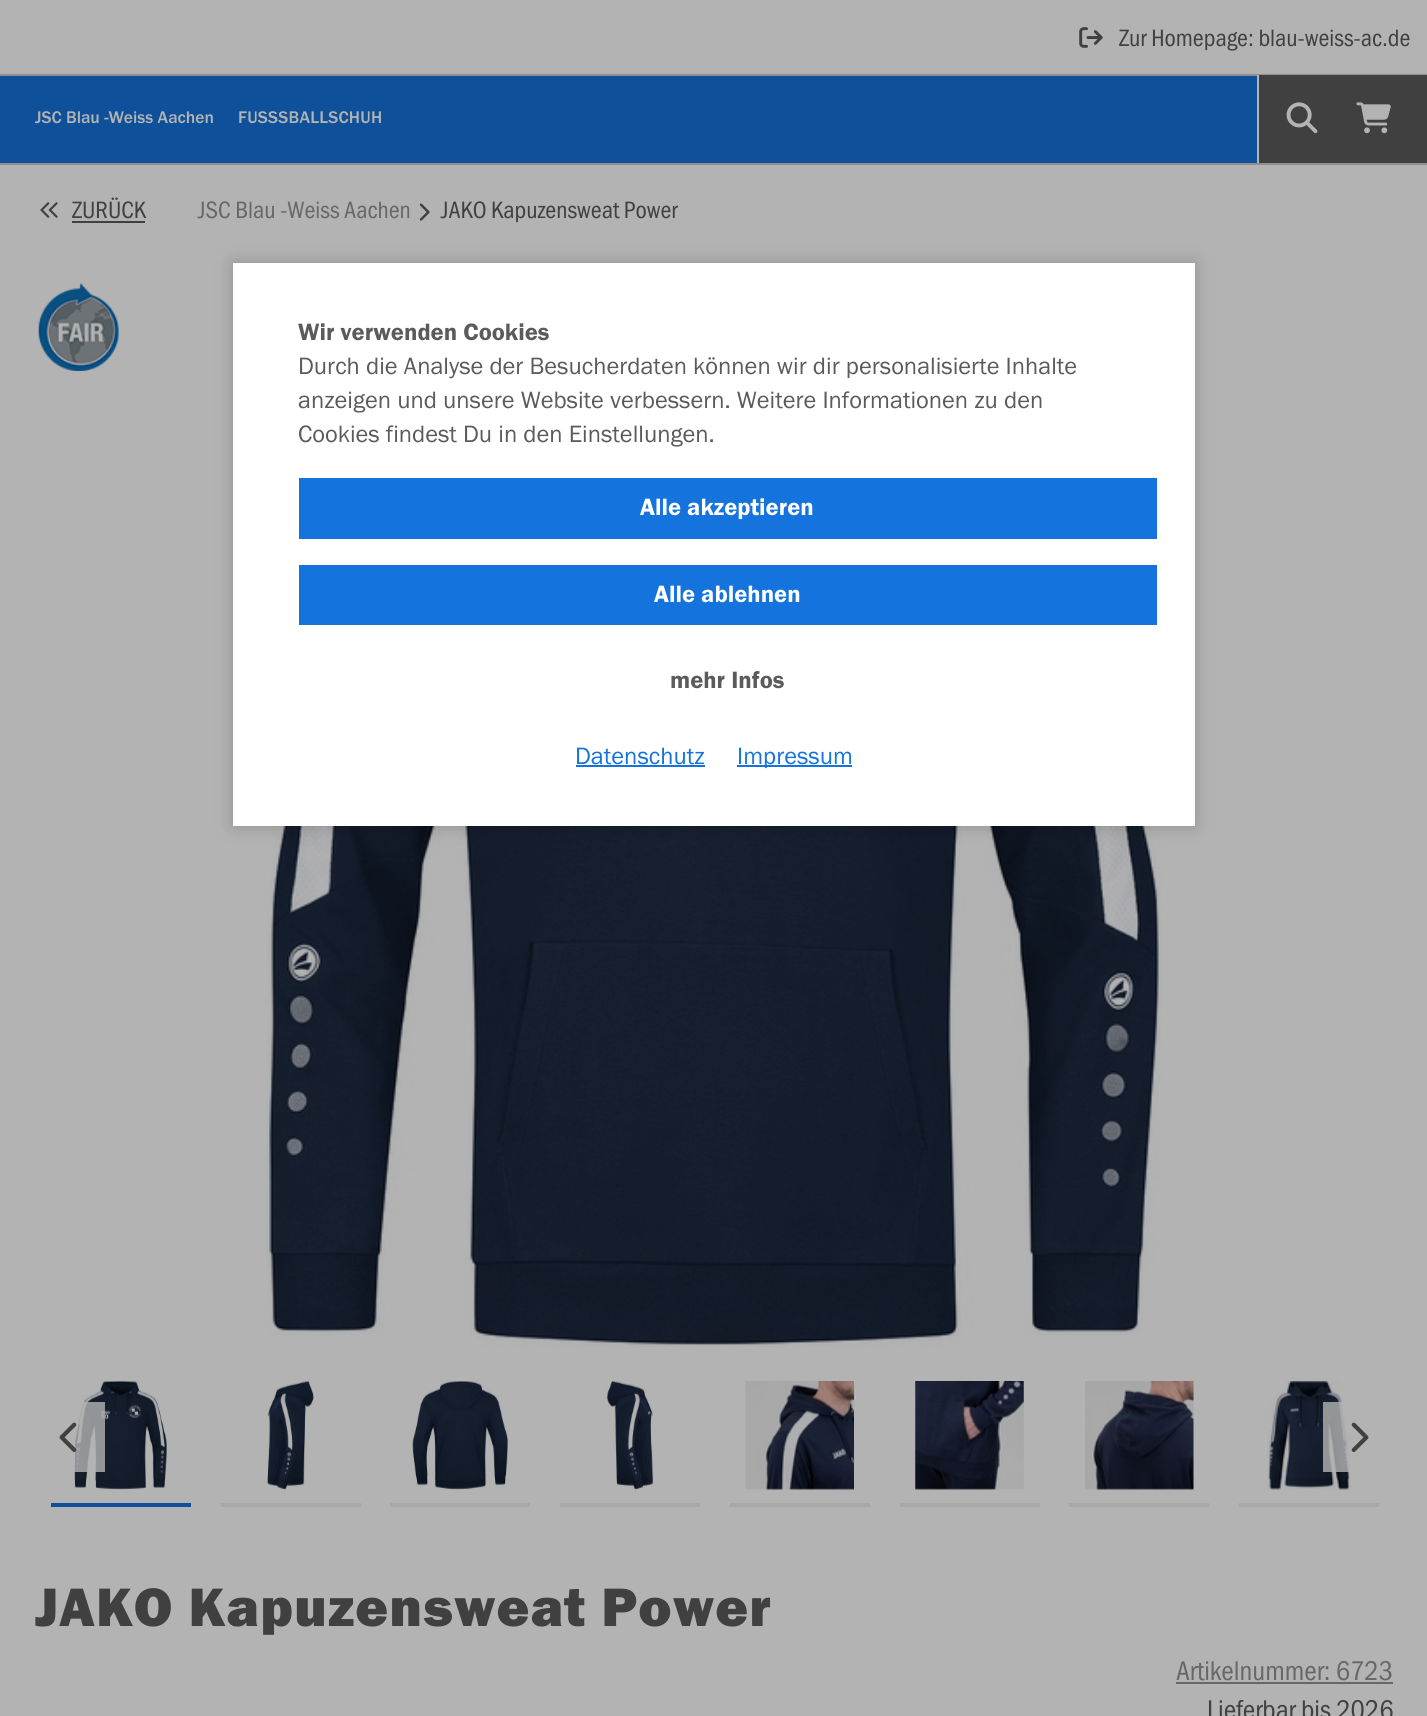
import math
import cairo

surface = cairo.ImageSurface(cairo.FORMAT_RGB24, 1427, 1716)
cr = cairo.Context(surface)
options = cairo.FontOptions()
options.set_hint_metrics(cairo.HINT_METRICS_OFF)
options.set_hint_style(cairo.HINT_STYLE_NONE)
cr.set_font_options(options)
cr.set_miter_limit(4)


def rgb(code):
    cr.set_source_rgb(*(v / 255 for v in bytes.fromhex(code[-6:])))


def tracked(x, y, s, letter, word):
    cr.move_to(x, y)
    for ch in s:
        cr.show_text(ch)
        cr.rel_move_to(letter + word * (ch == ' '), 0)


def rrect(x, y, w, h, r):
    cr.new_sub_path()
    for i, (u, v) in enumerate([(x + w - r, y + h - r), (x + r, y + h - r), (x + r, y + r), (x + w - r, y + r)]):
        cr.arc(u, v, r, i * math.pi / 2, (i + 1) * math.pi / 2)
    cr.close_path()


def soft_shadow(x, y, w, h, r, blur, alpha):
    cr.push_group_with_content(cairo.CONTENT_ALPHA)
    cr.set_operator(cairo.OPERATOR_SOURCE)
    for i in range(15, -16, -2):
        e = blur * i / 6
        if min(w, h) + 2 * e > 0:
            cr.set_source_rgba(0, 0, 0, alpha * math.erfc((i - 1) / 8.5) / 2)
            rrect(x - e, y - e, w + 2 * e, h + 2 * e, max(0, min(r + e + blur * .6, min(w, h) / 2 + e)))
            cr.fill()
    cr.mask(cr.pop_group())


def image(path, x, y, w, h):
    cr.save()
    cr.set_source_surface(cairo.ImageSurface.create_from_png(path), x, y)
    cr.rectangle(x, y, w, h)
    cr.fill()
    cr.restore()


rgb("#b3b3b3")
cr.paint()
image("img/1.png", 1079, 27, 24, 21)
for x, y, w, h, color in [
    (0, 76, 1257, 87, "#0e519a"),
    (0, 74, 1427, 2, "#8e8e8e"),
    (0, 163, 1427, 2, "#8e8e8e"),
    (1259, 75, 168, 88, "#404040"),
    (1257, 75, 2, 1, "#b3b3b3"),
]:
    rgb(color)
    cr.rectangle(x, y, w, h)
    cr.fill()
image("img/2.png", 1286, 102, 32, 32)
image("img/3.png", 1356, 102, 35, 32)
image("img/4.png", 40, 202, 18, 16)
rgb("#404040")
cr.rectangle(72, 221, 73, 2)
cr.fill()
image("img/5.png", 419, 203, 11, 18)
image("img/6.png", 38, 283, 81, 88)
image("img/7.png", 266, 826, 896, 521)
rgb("#0e519a")
cr.rectangle(51, 1503, 140, 4)
cr.fill()
image("img/8.png", 74, 1381, 93, 109)
rgb("#a8a8a8")
cr.rectangle(221, 1503, 140, 4)
cr.fill()
image("img/9.png", 267, 1381, 47, 109)
cr.rectangle(390, 1503, 140, 4)
cr.fill()
image("img/10.png", 412, 1381, 96, 109)
cr.rectangle(560, 1503, 140, 4)
cr.fill()
image("img/11.png", 607, 1381, 47, 109)
cr.rectangle(730, 1503, 140, 4)
cr.fill()
image("img/12.png", 745, 1381, 109, 109)
cr.rectangle(900, 1503, 140, 4)
cr.fill()
image("img/13.png", 915, 1381, 109, 109)
cr.rectangle(1069, 1503, 140, 4)
cr.fill()
image("img/14.png", 1085, 1381, 109, 109)
cr.rectangle(1239, 1503, 140, 4)
cr.fill()
image("img/15.png", 1267, 1381, 84, 109)
cr.set_source_rgba(0.702, 0.702, 0.702, 0.8)
cr.rectangle(74, 1402, 31, 70)
cr.fill()
image("img/16.png", 59, 1422, 18, 30)
cr.rectangle(1323, 1402, 28, 70)
cr.fill()
image("img/17.png", 1351, 1422, 18, 30)
rgb("#67676a")
cr.rectangle(1176, 1682, 217, 2)
cr.fill()
rgb("#000000")
soft_shadow(233, 263, 962, 563, 0, 9, 0.2)
for x, y, w, h, color in [
    (233, 263, 962, 563, "#ffffff"),
    (299, 478, 858, 61, "#1473dc"),
    (299, 565, 858, 60, "#1473dc"),
    (576, 765, 129, 2, "#1473dc"),
    (737, 765, 115, 2, "#1473dc"),
]:
    rgb(color)
    cr.rectangle(x, y, w, h)
    cr.fill()
cr.select_font_face("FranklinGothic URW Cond")
cr.set_font_size(24.5)
rgb("#404040")
cr.move_to(1119, 46)
cr.show_text("Zur Homepage: blau-weiss-ac.de")
cr.select_font_face("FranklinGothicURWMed")
cr.set_font_size(17.5)
rgb("#b3b3b3")
cr.move_to(35, 123)
cr.show_text("JSC Blau -Weiss Aachen")
tracked(238, 123, "FUSSSBALLSCHUH", 0.25, 0)
cr.select_font_face("FranklinGothic URW Cond")
cr.set_font_size(24.5)
rgb("#404040")
cr.move_to(72, 218)
cr.show_text("ZURÜCK")
rgb("#67676a")
cr.move_to(198, 218)
cr.show_text("JSC Blau -Weiss Aachen")
rgb("#404040")
cr.move_to(441, 218)
cr.show_text("JAKO Kapuzensweat Power")
cr.select_font_face("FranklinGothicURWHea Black")
cr.set_font_size(56)
tracked(35, 1626, "JAKO Kapuzensweat Power", 1.05, 0)
cr.select_font_face("FranklinGothic URW Cond")
cr.set_font_size(28)
rgb("#67676a")
cr.move_to(1176, 1680)
cr.show_text("Artikelnummer: 6723")
rgb("#404040")
cr.move_to(1207, 1719)
cr.show_text("Lieferbar bis 2026")
cr.select_font_face("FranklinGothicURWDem")
cr.set_font_size(24.5)
rgb("#5b5b5b")
cr.move_to(298, 340)
cr.show_text("Wir verwenden Cookies")
cr.select_font_face("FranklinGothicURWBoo")
for x, y, s in [
    (298, 374, "Durch die Analyse der Besucherdaten können wir dir personalisierte Inhalte"),
    (298, 408, "anzeigen und unsere Website verbessern. Weitere Informationen zu den"),
    (298, 442, "Cookies findest Du in den Einstellungen."),
]:
    cr.move_to(x, y)
    cr.show_text(s)
cr.select_font_face("FranklinGothicURWDem")
rgb("#ffffff")
cr.move_to(640, 515)
cr.show_text("Alle akzeptieren")
cr.move_to(654, 602)
cr.show_text("Alle ablehnen")
rgb("#5b5b5b")
cr.move_to(670, 688)
cr.show_text("mehr Infos")
cr.select_font_face("FranklinGothicURWBoo")
rgb("#1473dc")
cr.move_to(575, 764)
cr.show_text("Datenschutz")
cr.move_to(737, 764)
cr.show_text("Impressum")
surface.write_to_png("page.png")
